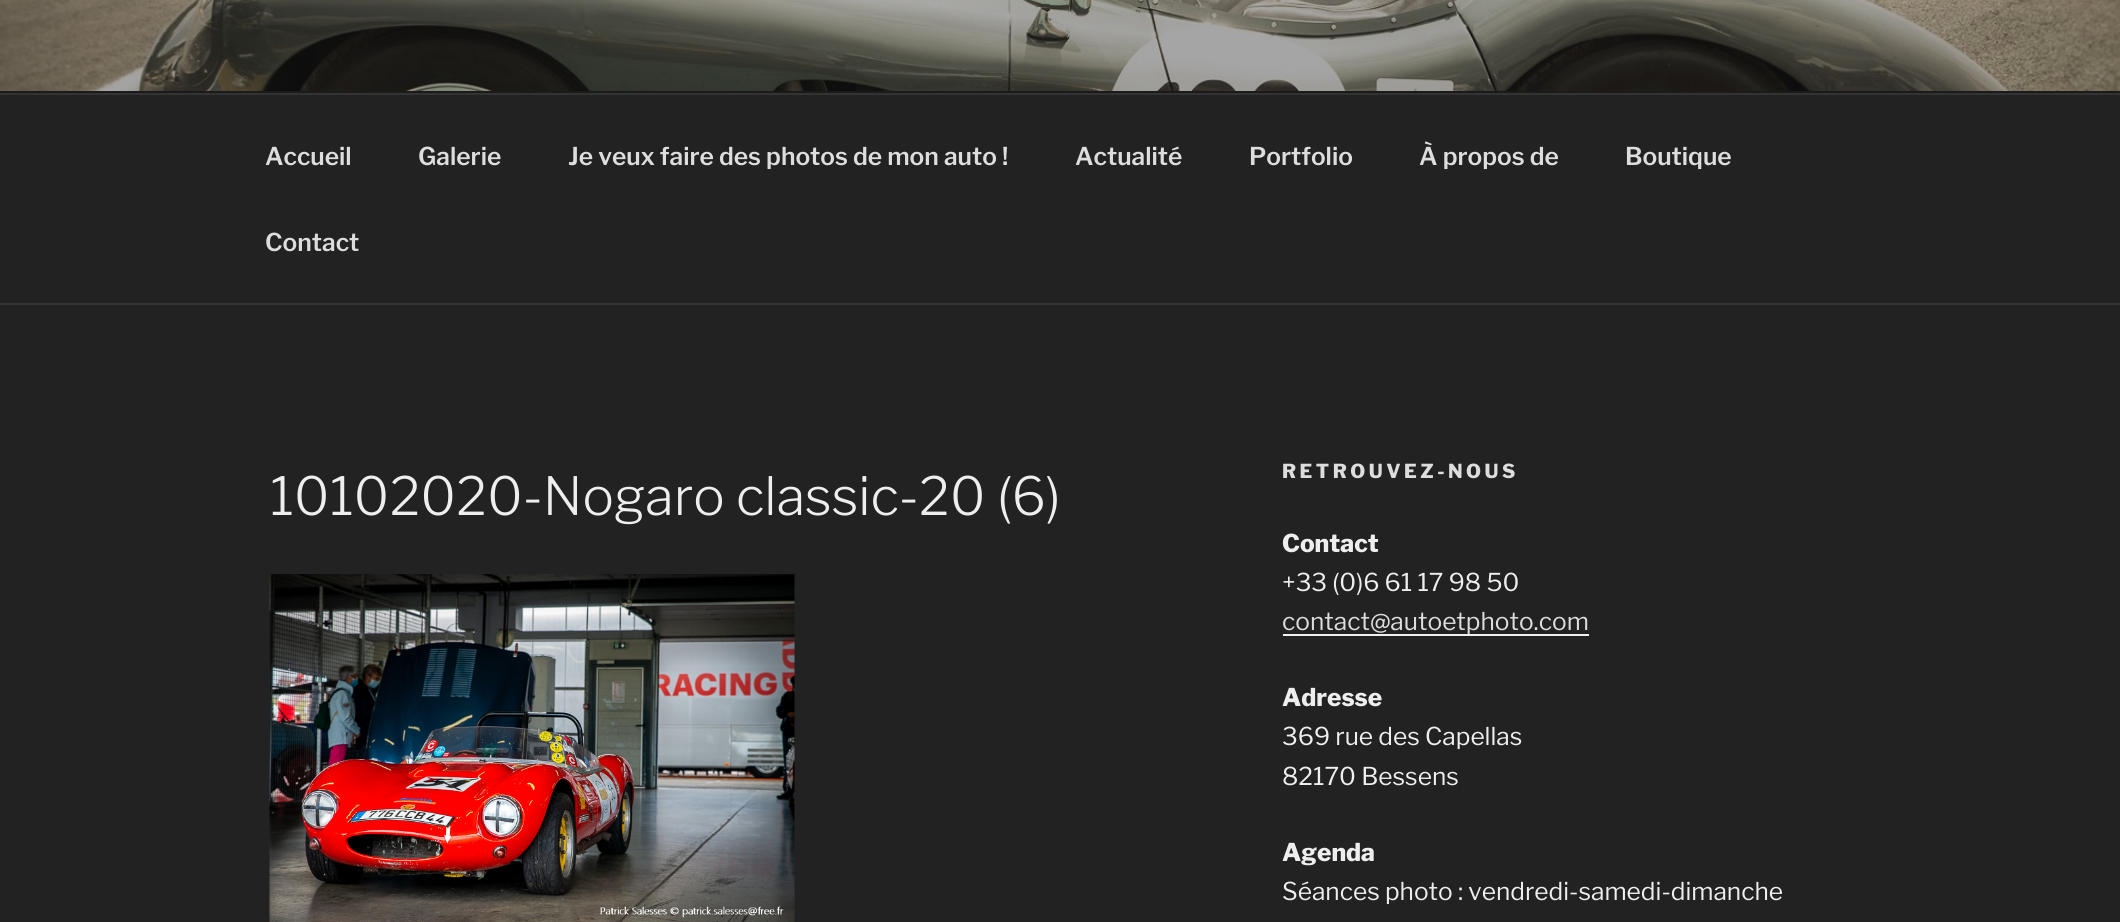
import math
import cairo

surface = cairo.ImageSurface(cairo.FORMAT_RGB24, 2120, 922)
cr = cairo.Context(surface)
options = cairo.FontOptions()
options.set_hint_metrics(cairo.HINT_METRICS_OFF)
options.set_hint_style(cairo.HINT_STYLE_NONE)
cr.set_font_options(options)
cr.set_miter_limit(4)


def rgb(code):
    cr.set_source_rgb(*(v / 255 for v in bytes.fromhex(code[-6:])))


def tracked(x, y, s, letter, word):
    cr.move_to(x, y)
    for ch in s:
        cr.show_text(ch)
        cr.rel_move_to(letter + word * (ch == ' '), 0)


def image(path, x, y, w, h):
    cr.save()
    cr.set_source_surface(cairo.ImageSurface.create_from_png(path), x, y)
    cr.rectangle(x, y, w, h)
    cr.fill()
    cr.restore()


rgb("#222222")
cr.paint()
rgb("#262626")
cr.rectangle(0, 91, 2120, 2)
cr.fill()
image("img/1.png", 0, 0, 2120, 91)
gradient = cairo.LinearGradient(1061, -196, 1061, 93)
gradient.add_color_stop_rgba(0, 0, 0, 0, 0)
gradient.add_color_stop_rgba(0.75, 0, 0, 0, 0.3)
gradient.add_color_stop_rgba(1, 0, 0, 0, 0.3)
cr.set_source(gradient)
cr.rectangle(0, 0, 2120, 93)
cr.fill()
rgb("#333333")
cr.rectangle(0, 93, 2120, 2)
cr.fill()
cr.rectangle(0, 303, 2120, 2)
cr.fill()
image("img/2.png", 269, 574, 526, 348)
rgb("#f0f0f0")
cr.rectangle(1283, 634, 306, 2)
cr.fill()
cr.select_font_face("Libre Franklin SemiBold")
cr.set_font_size(24.5)
rgb("#dddddd")
for x, y, s in [
    (265, 165, "Accueil"),
    (418, 165, "Galerie"),
    (568, 165, "Je veux faire des photos de mon auto !"),
    (1075, 165, "Actualité"),
    (1249, 165, "Portfolio"),
    (1419, 165, "À propos de"),
    (1625, 165, "Boutique"),
    (265, 251, "Contact"),
]:
    cr.move_to(x, y)
    cr.show_text(s)
cr.select_font_face("Libre Franklin Light")
cr.set_font_size(52.5)
rgb("#eeeeee")
cr.move_to(270, 515)
cr.show_text("10102020-Nogaro classic-20 (6)")
cr.select_font_face("Libre Franklin ExtraBold")
cr.set_font_size(19.25)
rgb("#dddddd")
tracked(1282, 478, "RETROUVEZ-NOUS", 3.5, 0)
cr.set_font_size(24.5)
rgb("#eeeeee")
cr.move_to(1282, 552)
cr.show_text("Contact")
cr.select_font_face("Libre Franklin")
cr.move_to(1282, 591)
cr.show_text("+33 (0)6 61 17 98 50")
rgb("#dddddd")
cr.move_to(1282, 630)
cr.show_text("contact@autoetphoto.com")
cr.select_font_face("Libre Franklin ExtraBold")
rgb("#eeeeee")
cr.move_to(1282, 706)
cr.show_text("Adresse")
cr.select_font_face("Libre Franklin")
cr.move_to(1282, 745)
cr.show_text("369 rue des Capellas")
cr.move_to(1282, 785)
cr.show_text("82170 Bessens")
cr.select_font_face("Libre Franklin ExtraBold")
cr.move_to(1282, 861)
cr.show_text("Agenda")
cr.select_font_face("Libre Franklin")
cr.move_to(1282, 900)
cr.show_text("Séances photo : vendredi-samedi-dimanche")
surface.write_to_png("page.png")
